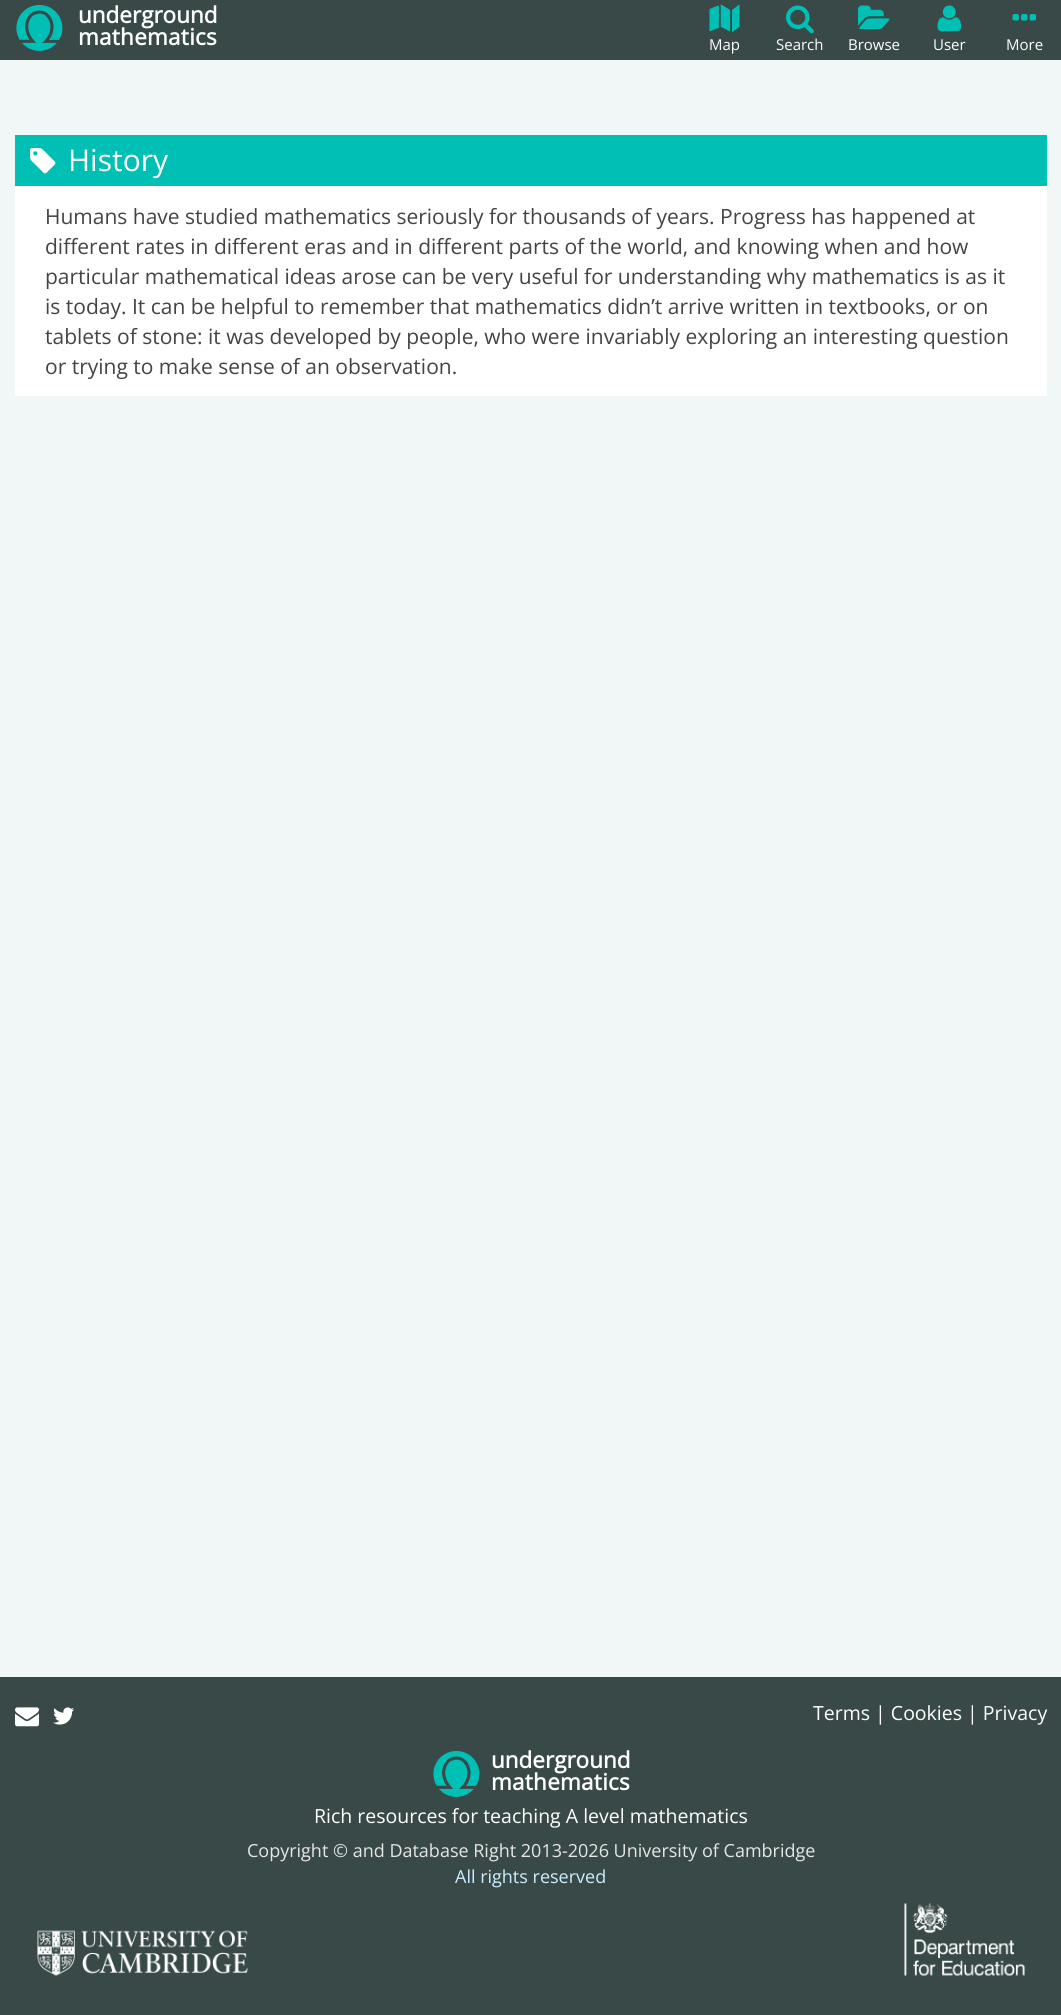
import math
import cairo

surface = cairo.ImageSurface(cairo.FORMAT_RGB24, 1061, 2015)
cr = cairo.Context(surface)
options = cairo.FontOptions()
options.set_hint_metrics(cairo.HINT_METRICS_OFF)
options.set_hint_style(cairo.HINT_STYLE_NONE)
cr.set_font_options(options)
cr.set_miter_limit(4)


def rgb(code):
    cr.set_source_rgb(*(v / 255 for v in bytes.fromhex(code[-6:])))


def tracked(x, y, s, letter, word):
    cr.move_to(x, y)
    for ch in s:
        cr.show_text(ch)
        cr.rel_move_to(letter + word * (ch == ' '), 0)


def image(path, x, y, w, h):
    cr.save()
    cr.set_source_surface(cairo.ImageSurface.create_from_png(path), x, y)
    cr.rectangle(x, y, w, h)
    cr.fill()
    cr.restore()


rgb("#f0f7f6")
cr.paint()
rgb("#384948")
cr.rectangle(0, 0, 1061, 60)
cr.fill()
image("img/1.png", 16, 5, 47, 46)
image("img/2.png", 709, 4, 31, 29)
image("img/3.png", 786, 5, 28, 29)
image("img/4.png", 858, 5, 32, 25)
image("img/5.png", 937, 5, 25, 27)
image("img/6.png", 1012, 14, 25, 7)
rgb("#ffffff")
cr.rectangle(15, 186, 1032, 210)
cr.fill()
rgb("#00bfb5")
cr.rectangle(15, 135, 1032, 51)
cr.fill()
image("img/7.png", 30, 148, 26, 26)
rgb("#384948")
cr.rectangle(0, 1677, 1061, 338)
cr.fill()
image("img/8.png", 15, 1707, 24, 20)
image("img/9.png", 53, 1707, 21, 18)
image("img/1.png", 433, 1751, 47, 46)
image("img/10.png", 37, 1930, 211, 46)
image("img/11.png", 904, 1903, 121, 73)
cr.select_font_face("Open Sans", cairo.FONT_SLANT_NORMAL, cairo.FONT_WEIGHT_BOLD)
cr.set_font_size(22.5)
rgb("#ffffff")
cr.move_to(78, 23)
cr.show_text("underground")
tracked(78, 45, "mathematics", 0.25, 0)
cr.select_font_face("Open Sans")
cr.set_font_size(15)
for x, y, s in [
    (709, 50, "Map"),
    (776, 50, "Search"),
    (848, 50, "Browse"),
    (933, 50, "User"),
    (1006, 50, "More"),
]:
    cr.move_to(x, y)
    cr.show_text(s)
cr.set_font_size(30)
cr.move_to(68, 171)
cr.show_text("History")
cr.set_font_size(21)
rgb("#444444")
for x, y, s in [
    (45, 224, "Humans have studied mathematics seriously for thousands of years. Progress has happened at"),
    (45, 254, "different rates in different eras and in different parts of the world, and knowing when and how"),
    (45, 284, "particular mathematical ideas arose can be very useful for understanding why mathematics is as it"),
    (45, 314, "is today. It can be helpful to remember that mathematics didn’t arrive written in textbooks, or on"),
    (45, 344, "tablets of stone: it was developed by people, who were invariably exploring an interesting question"),
    (45, 374, "or trying to make sense of an observation."),
]:
    cr.move_to(x, y)
    cr.show_text(s)
cr.set_font_size(19.5)
rgb("#ffffff")
cr.move_to(813, 1720)
cr.show_text("Terms | Cookies | Privacy")
cr.select_font_face("Open Sans", cairo.FONT_SLANT_NORMAL, cairo.FONT_WEIGHT_BOLD)
cr.set_font_size(22.5)
cr.move_to(491, 1768)
cr.show_text("underground")
tracked(491, 1790, "mathematics", 0.25, 0)
cr.select_font_face("Open Sans")
cr.set_font_size(19.5)
cr.move_to(314, 1823)
cr.show_text("Rich resources for teaching A level mathematics")
cr.set_font_size(18)
rgb("#e6e6e6")
cr.move_to(247, 1857)
cr.show_text("Copyright © and Database Right 2013-2026 University of Cambridge")
rgb("#cceeff")
cr.move_to(455, 1883)
cr.show_text("All rights reserved")
surface.write_to_png("page.png")
